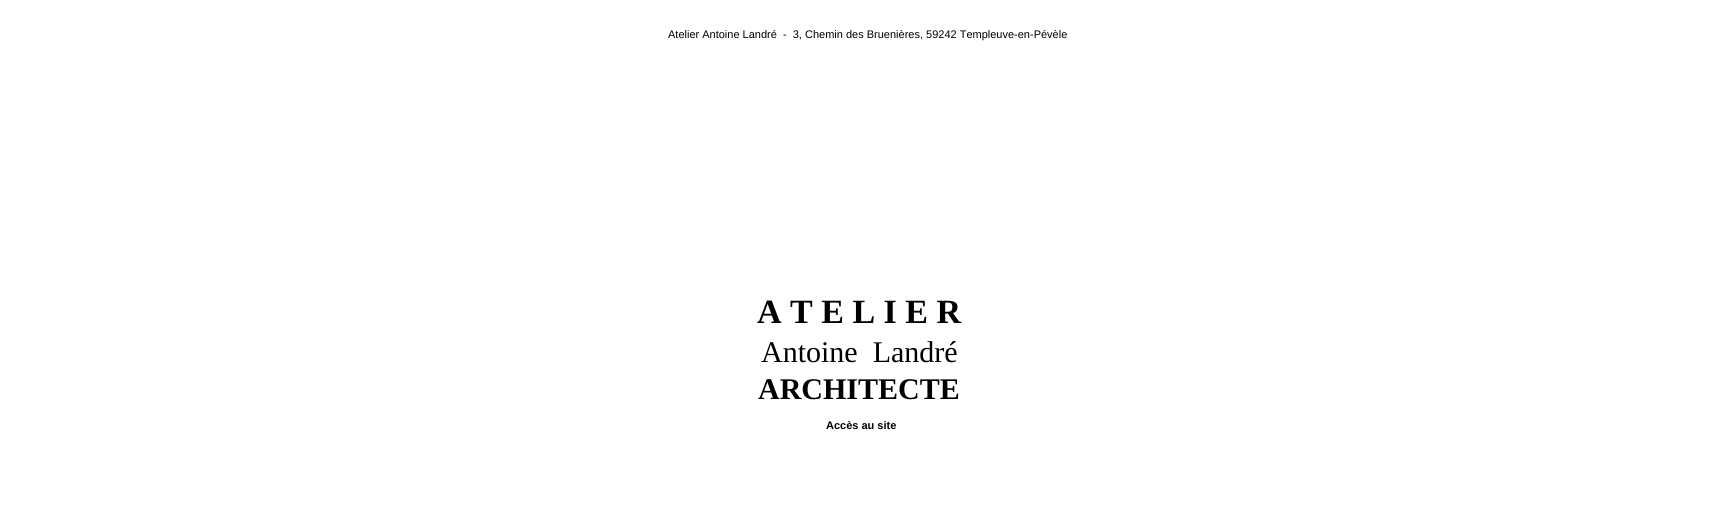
import math
import cairo

surface = cairo.ImageSurface(cairo.FORMAT_RGB24, 1726, 528)
cr = cairo.Context(surface)
options = cairo.FontOptions()
options.set_hint_metrics(cairo.HINT_METRICS_OFF)
options.set_hint_style(cairo.HINT_STYLE_NONE)
cr.set_font_options(options)
cr.set_miter_limit(4)


def rgb(code):
    cr.set_source_rgb(*(v / 255 for v in bytes.fromhex(code[-6:])))


rgb("#ffffff")
cr.paint()
cr.select_font_face("Liberation Sans")
cr.set_font_size(11)
rgb("#000000")
cr.move_to(668, 38)
cr.show_text("Atelier Antoine Landré  -  3, Chemin des Bruenières, 59242 Templeuve-en-Pévèle")
cr.select_font_face("Liberation Serif", cairo.FONT_SLANT_NORMAL, cairo.FONT_WEIGHT_BOLD)
cr.set_font_size(34)
cr.move_to(757, 323)
cr.show_text("A T E L I E R")
cr.select_font_face("Liberation Serif")
cr.set_font_size(30)
cr.move_to(761, 362)
cr.show_text("Antoine  Landré")
cr.select_font_face("Liberation Serif", cairo.FONT_SLANT_NORMAL, cairo.FONT_WEIGHT_BOLD)
cr.move_to(758, 399)
cr.show_text("ARCHITECTE")
cr.select_font_face("Liberation Sans", cairo.FONT_SLANT_NORMAL, cairo.FONT_WEIGHT_BOLD)
cr.set_font_size(11)
cr.move_to(826, 429)
cr.show_text("Accès au site")
surface.write_to_png("page.png")
